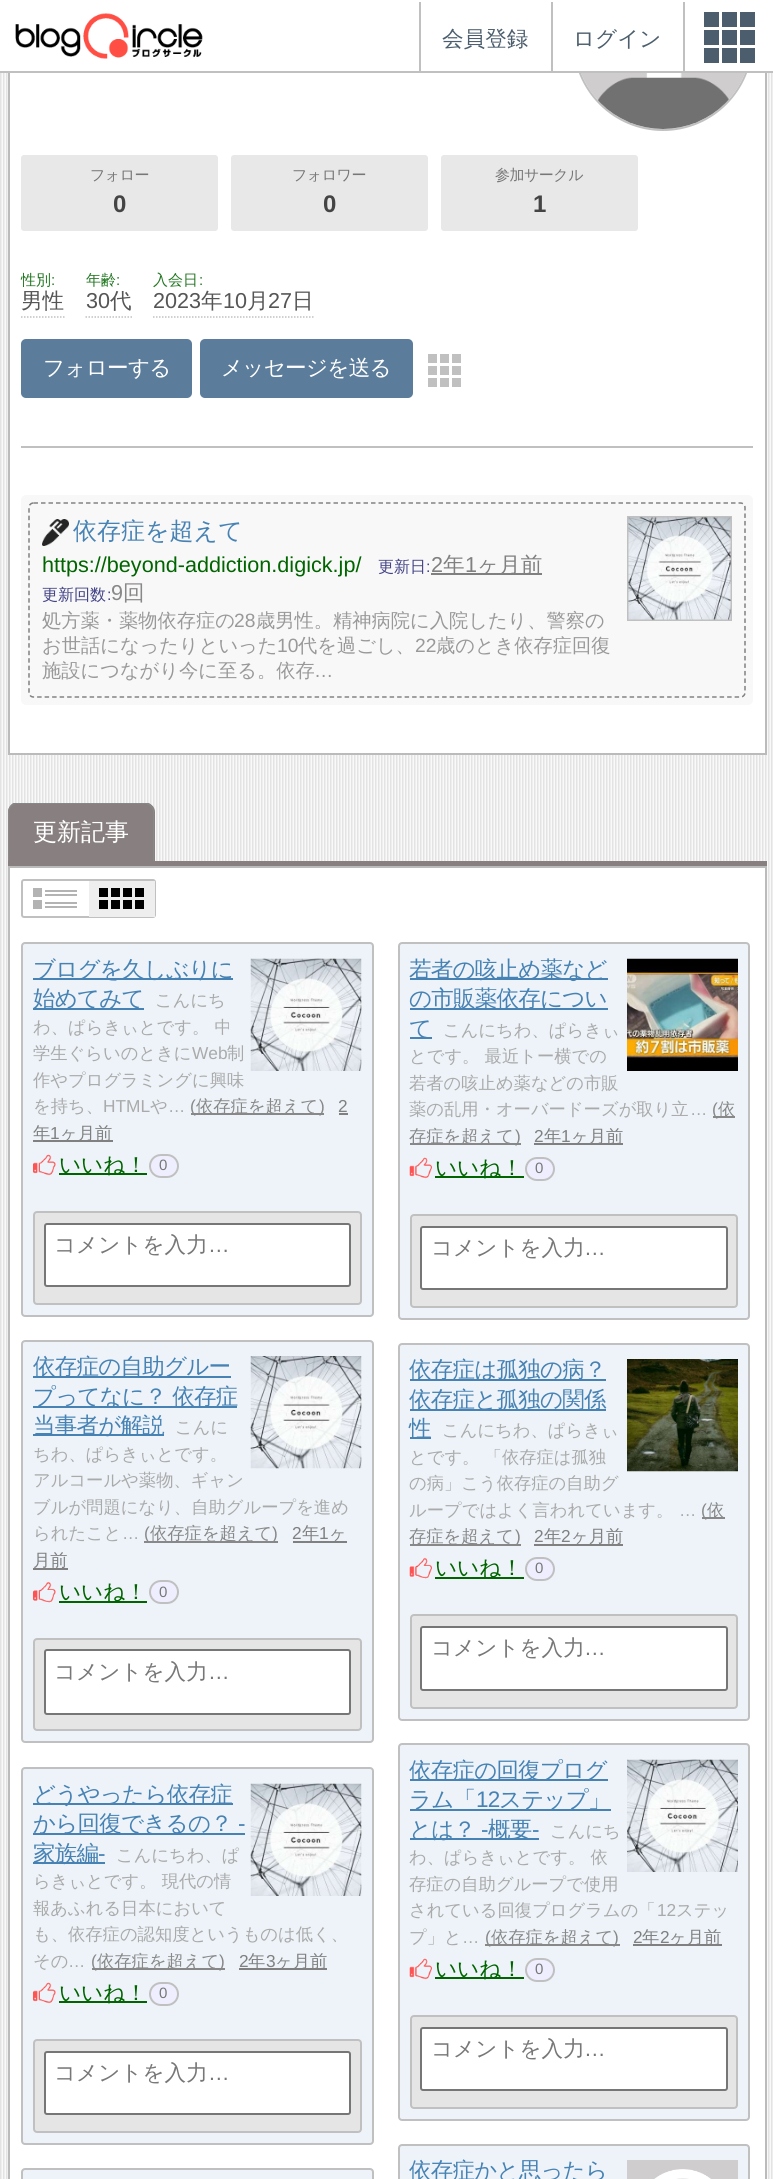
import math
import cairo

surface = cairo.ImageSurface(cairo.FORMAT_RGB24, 773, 2179)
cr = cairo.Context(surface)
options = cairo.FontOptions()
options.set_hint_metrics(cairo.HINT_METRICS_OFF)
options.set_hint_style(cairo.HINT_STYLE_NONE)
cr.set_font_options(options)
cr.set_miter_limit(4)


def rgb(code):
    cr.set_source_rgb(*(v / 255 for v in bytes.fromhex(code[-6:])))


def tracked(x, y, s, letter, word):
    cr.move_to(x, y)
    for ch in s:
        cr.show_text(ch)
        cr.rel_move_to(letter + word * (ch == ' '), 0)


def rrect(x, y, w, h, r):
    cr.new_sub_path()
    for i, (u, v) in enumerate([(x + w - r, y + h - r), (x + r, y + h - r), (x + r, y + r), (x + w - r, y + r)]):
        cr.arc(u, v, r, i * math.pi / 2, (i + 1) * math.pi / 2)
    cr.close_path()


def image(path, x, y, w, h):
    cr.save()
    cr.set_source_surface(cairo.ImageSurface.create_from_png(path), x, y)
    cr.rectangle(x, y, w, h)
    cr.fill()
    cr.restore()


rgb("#eeeeee")
cr.paint()
image("img/1.png", 0, 73, 772, 2106)
rgb("#ffffff")
cr.rectangle(10, 73, 755, 680)
cr.fill()
cr.rectangle(9, -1, 757, 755)
rgb("#bbbbbb")
cr.stroke()
cr.arc(663, 41, 89, 0, 2 * math.pi)
rgb("#c0c0c0")
cr.stroke()
rgb("#ffffff")
cr.rectangle(0, 0, 773, 71)
cr.fill()
rgb("#c0c0c0")
cr.rectangle(0, 71, 773, 2)
cr.fill()
image("img/2.png", 15, 13, 188, 46)
for x, y, w, h, color in [
    (419, 2, 2, 69, "#c0c0c0"),
    (551, 2, 2, 69, "#c0c0c0"),
    (683, 2, 2, 69, "#c0c0c0"),
    (704, 12, 51, 15, "#4c5e6d"),
    (737, 12, 3, 15, "#ffffff"),
    (719, 12, 3, 15, "#ffffff"),
    (704, 30, 51, 15, "#4c5e6d"),
    (737, 30, 3, 15, "#ffffff"),
    (719, 30, 3, 15, "#ffffff"),
    (704, 48, 51, 15, "#4c5e6d"),
    (737, 48, 3, 15, "#ffffff"),
    (719, 48, 3, 15, "#ffffff"),
]:
    rgb(color)
    cr.rectangle(x, y, w, h)
    cr.fill()
image("img/3.png", 580, 73, 166, 56)
rgb("#e8e8e8")
rrect(21, 155, 197, 76, 3)
cr.fill()
rrect(231, 155, 197, 76, 3)
cr.fill()
rrect(441, 155, 197, 76, 3)
cr.fill()
cr.new_path()
cr.move_to(21, 317)
cr.line_to(64.5, 317)
rgb("#c0c0c0")
cr.set_line_width(1.5)
cr.set_dash([1.5, 1.5])
cr.stroke()
cr.new_path()
cr.move_to(85.5, 317)
cr.line_to(132, 317)
cr.stroke()
cr.new_path()
cr.move_to(153, 317)
cr.line_to(313.5, 317)
cr.stroke()
rgb("#5b7c9a")
rrect(21, 339, 171, 59, 5)
cr.fill()
rrect(200, 339, 213, 59, 5)
cr.fill()
for x, y, w, h, color in [
    (440, 354, 9, 9, "#c0c0c0"),
    (428, 354, 9, 9, "#c0c0c0"),
    (452, 354, 9, 9, "#c0c0c0"),
    (440, 366, 9, 9, "#c0c0c0"),
    (428, 366, 9, 9, "#c0c0c0"),
    (452, 366, 9, 9, "#c0c0c0"),
    (440, 378, 9, 9, "#c0c0c0"),
    (428, 378, 9, 9, "#c0c0c0"),
    (452, 378, 9, 9, "#c0c0c0"),
    (21, 446, 732, 2, "#c0c0c0"),
]:
    rgb(color)
    cr.rectangle(x, y, w, h)
    cr.fill()
rgb("#f8f8f8")
rrect(21, 495, 732, 210, 5)
cr.fill()
cr.new_path()
cr.move_to(33.5, 503)
cr.line_to(740.5, 503)
cr.curve_to(743, 503, 745, 505, 745, 507.5)
cr.line_to(745, 692.5)
cr.curve_to(745, 695, 743, 697, 740.5, 697)
cr.line_to(33.5, 697)
cr.curve_to(31, 697, 29, 695, 29, 692.5)
cr.line_to(29, 507.5)
cr.curve_to(29, 505, 31, 503, 33.5, 503)
cr.close_path()
rgb("#808080")
cr.set_dash([4.5, 3])
cr.stroke()
image("img/4.png", 42, 519, 27, 27)
cr.rectangle(431, 573, 111, 2)
cr.fill()
cr.rectangle(628, 517, 103, 103)
rgb("#c0c0c0")
cr.set_line_width(2)
cr.set_dash([])
cr.stroke()
image("img/5.png", 628, 517, 103, 103)
rgb("#888080")
cr.rectangle(8, 861, 759, 5)
cr.fill()
cr.new_path()
cr.move_to(17, 803)
cr.line_to(146, 803)
cr.curve_to(151, 803, 155, 807, 155, 812)
cr.line_to(155, 861)
cr.line_to(8, 861)
cr.line_to(8, 812)
cr.curve_to(8, 807, 12, 803, 17, 803)
cr.close_path()
cr.fill()
cr.save()
cr.rectangle(8, 803, 759, 58)
cr.clip()
rgb("#888888")
cr.set_fill_rule(cairo.FILL_RULE_EVEN_ODD)
cr.new_path()
cr.move_to(17, 802)
cr.line_to(145, 802)
cr.curve_to(150, 802, 154, 807, 154, 812)
cr.line_to(154, 861)
cr.line_to(8, 861)
cr.line_to(8, 812)
cr.curve_to(8, 807, 12, 802, 17, 802)
cr.close_path()
cr.move_to(17, 804)
cr.line_to(145, 804)
cr.curve_to(149, 804, 153, 808, 153, 812)
cr.line_to(153, 861)
cr.line_to(9, 861)
cr.line_to(9, 812)
cr.curve_to(9, 808, 13, 804, 17, 804)
cr.close_path()
cr.fill()
cr.restore()
rgb("#ffffff")
cr.rectangle(9, 867, 757, 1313)
cr.fill_preserve()
rgb("#bbbbbb")
cr.stroke()
rrect(22, 880, 133, 37, 2)
rgb("#c0c0c0")
cr.stroke()
for x, y, w, h, color in [
    (33, 888, 9, 9, "#b3b3b3"),
    (45, 890, 32, 2, "#b3b3b3"),
    (45, 894, 32, 2, "#b3b3b3"),
    (33, 900, 9, 9, "#b3b3b3"),
    (45, 902, 32, 2, "#b3b3b3"),
    (45, 906, 32, 2, "#b3b3b3"),
    (89, 881, 66, 36, "#eeeeee"),
    (99, 888, 9, 9, "#000000"),
    (111, 888, 9, 9, "#000000"),
    (123, 888, 9, 9, "#000000"),
    (135, 888, 9, 9, "#000000"),
    (99, 900, 9, 9, "#000000"),
    (111, 900, 9, 9, "#000000"),
    (123, 900, 9, 9, "#000000"),
    (135, 900, 9, 9, "#000000"),
]:
    rgb(color)
    cr.rectangle(x, y, w, h)
    cr.fill()
rgb("#edf3f8")
rrect(22, 943, 351, 373, 3)
cr.fill_preserve()
rgb("#c0c0c0")
cr.stroke()
for x, y, w, h, color in [
    (33, 978, 200, 2, "#4682b4"),
    (33, 1008, 111, 2, "#4682b4"),
    (191, 1113, 133, 2, "#888888"),
    (339, 1113, 9, 2, "#808080"),
    (33, 1140, 80, 2, "#808080"),
]:
    rgb(color)
    cr.rectangle(x, y, w, h)
    cr.fill()
image("img/6.png", 33, 1154, 23, 22)
rgb("#006400")
cr.rectangle(59, 1173, 88, 2)
cr.fill()
rgb("#eeeeff")
rrect(150, 1155, 28, 22, 11)
cr.fill_preserve()
rgb("#c0c0c0")
cr.stroke()
image("img/7.png", 250, 958, 112, 113)
rgb("#e5e5e5")
rrect(34, 1212, 327, 92, 3)
cr.fill_preserve()
rgb("#c0c0c0")
cr.stroke()
rgb("#ffffff")
rrect(45, 1224, 305, 62, 2)
cr.fill_preserve()
rgb("#767676")
cr.stroke()
rgb("#edf3f8")
rrect(399, 943, 350, 376, 3)
cr.fill_preserve()
rgb("#c0c0c0")
cr.stroke()
for x, y, w, h, color in [
    (410, 978, 198, 2, "#4682b4"),
    (410, 1008, 198, 2, "#4682b4"),
    (410, 1037, 22, 2, "#4682b4"),
    (713, 1116, 5, 2, "#888888"),
    (717, 1116, 18, 2, "#888888"),
    (410, 1143, 111, 2, "#888888"),
    (534, 1143, 89, 2, "#808080"),
]:
    rgb(color)
    cr.rectangle(x, y, w, h)
    cr.fill()
image("img/8.png", 409, 1157, 23, 22)
rgb("#006400")
cr.rectangle(435, 1176, 89, 2)
cr.fill()
rgb("#eeeeff")
rrect(526, 1158, 28, 22, 11)
cr.fill_preserve()
rgb("#c0c0c0")
cr.stroke()
image("img/9.png", 627, 958, 111, 113)
rgb("#e5e5e5")
rrect(411, 1215, 326, 92, 3)
cr.fill_preserve()
rgb("#c0c0c0")
cr.stroke()
rgb("#ffffff")
rrect(421, 1227, 306, 62, 2)
cr.fill_preserve()
rgb("#767676")
cr.stroke()
rgb("#edf3f8")
rrect(22, 1341, 351, 401, 3)
cr.fill_preserve()
rgb("#c0c0c0")
cr.stroke()
for x, y, w, h, color in [
    (33, 1376, 198, 2, "#4682b4"),
    (33, 1406, 204, 2, "#4682b4"),
    (33, 1434, 131, 2, "#4682b4"),
    (144, 1541, 134, 2, "#888888"),
    (293, 1541, 54, 2, "#808080"),
    (33, 1568, 35, 2, "#808080"),
]:
    rgb(color)
    cr.rectangle(x, y, w, h)
    cr.fill()
image("img/10.png", 33, 1581, 23, 22)
rgb("#006400")
cr.rectangle(59, 1601, 88, 2)
cr.fill()
rgb("#eeeeff")
rrect(150, 1581, 28, 22, 11)
cr.fill_preserve()
rgb("#c0c0c0")
cr.stroke()
image("img/11.png", 250, 1356, 112, 113)
rgb("#e5e5e5")
rrect(34, 1639, 327, 91, 3)
cr.fill_preserve()
rgb("#c0c0c0")
cr.stroke()
rgb("#ffffff")
rrect(45, 1650, 305, 64, 2)
cr.fill_preserve()
rgb("#767676")
cr.stroke()
rgb("#edf3f8")
rrect(399, 1344, 350, 376, 3)
cr.fill_preserve()
rgb("#c0c0c0")
cr.stroke()
for x, y, w, h, color in [
    (410, 1379, 196, 2, "#4682b4"),
    (410, 1409, 196, 2, "#4682b4"),
    (410, 1437, 21, 2, "#4682b4"),
    (702, 1517, 5, 2, "#888888"),
    (707, 1517, 18, 2, "#888888"),
    (410, 1544, 111, 2, "#888888"),
    (534, 1544, 89, 2, "#808080"),
]:
    rgb(color)
    cr.rectangle(x, y, w, h)
    cr.fill()
image("img/12.png", 409, 1557, 23, 22)
rgb("#006400")
cr.rectangle(435, 1577, 89, 2)
cr.fill()
rgb("#eeeeff")
rrect(526, 1558, 28, 22, 11)
cr.fill_preserve()
rgb("#c0c0c0")
cr.stroke()
image("img/13.png", 627, 1359, 111, 113)
rgb("#e5e5e5")
rrect(411, 1615, 326, 93, 3)
cr.fill_preserve()
rgb("#c0c0c0")
cr.stroke()
rgb("#ffffff")
rrect(421, 1627, 306, 63, 2)
cr.fill_preserve()
rgb("#767676")
cr.stroke()
rgb("#edf3f8")
rrect(22, 1768, 351, 376, 3)
cr.fill_preserve()
rgb("#c0c0c0")
cr.stroke()
for x, y, w, h, color in [
    (33, 1803, 200, 2, "#4682b4"),
    (33, 1833, 212, 2, "#4682b4"),
    (92, 1968, 5, 2, "#888888"),
    (96, 1968, 129, 2, "#888888"),
    (239, 1968, 88, 2, "#808080"),
]:
    rgb(color)
    cr.rectangle(x, y, w, h)
    cr.fill()
image("img/6.png", 33, 1982, 23, 22)
rgb("#006400")
cr.rectangle(59, 2001, 88, 2)
cr.fill()
rgb("#eeeeff")
rrect(150, 1983, 28, 22, 11)
cr.fill_preserve()
rgb("#c0c0c0")
cr.stroke()
rgb("#4682b4")
cr.rectangle(33, 1862, 72, 2)
cr.fill()
image("img/14.png", 250, 1783, 112, 113)
rgb("#e5e5e5")
rrect(34, 2040, 327, 92, 3)
cr.fill_preserve()
rgb("#c0c0c0")
cr.stroke()
rgb("#ffffff")
rrect(45, 2052, 305, 62, 2)
cr.fill_preserve()
rgb("#767676")
cr.stroke()
rgb("#edf3f8")
rrect(399, 1744, 350, 376, 3)
cr.fill_preserve()
rgb("#c0c0c0")
cr.stroke()
for x, y, w, h, color in [
    (410, 1779, 198, 2, "#4682b4"),
    (410, 1809, 201, 2, "#4682b4"),
    (410, 1838, 129, 2, "#4682b4"),
    (485, 1944, 135, 2, "#888888"),
    (633, 1944, 89, 2, "#808080"),
]:
    rgb(color)
    cr.rectangle(x, y, w, h)
    cr.fill()
image("img/8.png", 409, 1958, 23, 22)
rgb("#006400")
cr.rectangle(435, 1977, 89, 2)
cr.fill()
rgb("#eeeeff")
rrect(526, 1959, 28, 22, 11)
cr.fill_preserve()
rgb("#c0c0c0")
cr.stroke()
image("img/15.png", 627, 1759, 111, 113)
rgb("#e5e5e5")
rrect(411, 2016, 326, 92, 3)
cr.fill_preserve()
rgb("#c0c0c0")
cr.stroke()
rgb("#ffffff")
rrect(421, 2028, 306, 62, 2)
cr.fill_preserve()
rgb("#767676")
cr.stroke()
rgb("#edf3f8")
rrect(22, 2169, 351, 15, 3)
cr.fill_preserve()
rgb("#c0c0c0")
cr.stroke()
rgb("#edf3f8")
rrect(399, 2145, 350, 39, 3)
cr.fill_preserve()
rgb("#c0c0c0")
cr.stroke()
image("img/16.png", 627, 2160, 111, 19)
cr.select_font_face("WenQuanYi Zen Hei Medium")
cr.set_font_size(21.6)
rgb("#4c5e6d")
cr.move_to(442, 46)
cr.show_text("会員登録")
cr.move_to(573, 46)
cr.show_text("ログイン")
cr.set_font_size(15)
rgb("#777777")
tracked(90, 180, "フォロー", -0.5, 0)
cr.select_font_face("Liberation Sans", cairo.FONT_SLANT_NORMAL, cairo.FONT_WEIGHT_BOLD)
cr.set_font_size(24)
rgb("#444444")
tracked(113, 212, "0", -0.5, 0)
cr.select_font_face("WenQuanYi Zen Hei Medium")
cr.set_font_size(15)
rgb("#777777")
tracked(292, 180, "フォロワー", -0.5, 0)
cr.select_font_face("Liberation Sans", cairo.FONT_SLANT_NORMAL, cairo.FONT_WEIGHT_BOLD)
cr.set_font_size(24)
rgb("#444444")
tracked(323, 212, "0", -0.5, 0)
cr.select_font_face("WenQuanYi Zen Hei Medium")
cr.set_font_size(15)
rgb("#777777")
tracked(495, 180, "参加サークル", -0.5, 0)
cr.select_font_face("Liberation Sans", cairo.FONT_SLANT_NORMAL, cairo.FONT_WEIGHT_BOLD)
cr.set_font_size(24)
rgb("#444444")
tracked(533, 212, "1", -0.5, 0)
cr.select_font_face("WenQuanYi Zen Hei Medium")
cr.set_font_size(15)
rgb("#227722")
cr.move_to(21, 285)
cr.show_text("性別")
cr.select_font_face("Liberation Sans")
cr.move_to(51, 285)
cr.show_text(":")
cr.select_font_face("WenQuanYi Zen Hei Medium")
cr.set_font_size(21.6)
rgb("#555555")
cr.move_to(21, 308)
cr.show_text("男性")
cr.set_font_size(15)
rgb("#227722")
cr.move_to(86, 285)
cr.show_text("年齢")
cr.select_font_face("Liberation Sans")
cr.move_to(116, 285)
cr.show_text(":")
cr.set_font_size(21.6)
rgb("#555555")
cr.move_to(86, 308)
cr.show_text("30")
cr.select_font_face("WenQuanYi Zen Hei Medium")
cr.move_to(110, 308)
cr.show_text("代")
cr.set_font_size(15)
rgb("#227722")
cr.move_to(153, 285)
cr.show_text("入会日")
cr.select_font_face("Liberation Sans")
cr.move_to(199, 285)
cr.show_text(":")
cr.set_font_size(21.6)
rgb("#555555")
cr.move_to(153, 308)
cr.show_text("2023")
cr.select_font_face("WenQuanYi Zen Hei Medium")
cr.move_to(201, 308)
cr.show_text("年")
cr.select_font_face("Liberation Sans")
cr.move_to(223, 308)
cr.show_text("10")
cr.select_font_face("WenQuanYi Zen Hei Medium")
cr.move_to(247, 308)
cr.show_text("月")
cr.select_font_face("Liberation Sans")
cr.move_to(268, 308)
cr.show_text("27")
cr.select_font_face("WenQuanYi Zen Hei Medium")
cr.move_to(292, 308)
cr.show_text("日")
rgb("#ffffff")
tracked(43, 375, "フォローする", -0.75, 0)
tracked(221, 375, "メッセージを送る", -0.75, 0)
cr.set_font_size(24)
rgb("#4682b4")
cr.move_to(73, 539)
cr.show_text("依存症を超えて")
cr.select_font_face("Liberation Sans")
cr.set_font_size(21.6)
rgb("#006400")
cr.move_to(42, 572)
cr.show_text("https://beyond-addiction.digick.jp/")
cr.select_font_face("WenQuanYi Zen Hei Medium")
cr.set_font_size(16)
rgb("#444488")
cr.move_to(378, 572)
cr.show_text("更新日")
cr.select_font_face("Liberation Sans")
cr.move_to(426, 572)
cr.show_text(":")
cr.set_font_size(21.6)
rgb("#808080")
cr.move_to(431, 572)
cr.show_text("2")
cr.select_font_face("WenQuanYi Zen Hei Medium")
cr.move_to(443, 572)
cr.show_text("年")
cr.select_font_face("Liberation Sans")
cr.move_to(465, 572)
cr.show_text("1")
cr.select_font_face("WenQuanYi Zen Hei Medium")
cr.move_to(477, 572)
cr.show_text("ヶ月前")
cr.set_font_size(16)
rgb("#444488")
cr.move_to(42, 600)
cr.show_text("更新回数")
cr.select_font_face("Liberation Sans")
cr.move_to(107, 600)
cr.show_text(":")
cr.set_font_size(21.6)
rgb("#888888")
cr.move_to(111, 600)
cr.show_text("9")
cr.select_font_face("WenQuanYi Zen Hei Medium")
cr.move_to(123, 600)
cr.show_text("回")
cr.set_font_size(19.25)
rgb("#999999")
cr.move_to(42, 627)
cr.show_text("処方薬・薬物依存症の")
cr.select_font_face("Liberation Sans")
cr.move_to(234, 627)
cr.show_text("28")
cr.select_font_face("WenQuanYi Zen Hei Medium")
cr.move_to(256, 627)
cr.show_text("歳男性。精神病院に入院したり、警察の")
cr.move_to(42, 652)
cr.show_text("お世話になったりといった")
cr.select_font_face("Liberation Sans")
cr.move_to(277, 652)
cr.show_text("10")
cr.select_font_face("WenQuanYi Zen Hei Medium")
cr.move_to(298, 652)
cr.show_text("代を過ごし、")
cr.select_font_face("Liberation Sans")
cr.move_to(415, 652)
cr.show_text("22")
cr.select_font_face("WenQuanYi Zen Hei Medium")
cr.move_to(436, 652)
cr.show_text("歳のとき依存症回復")
cr.move_to(42, 677)
cr.show_text("施設につながり今に至る。依存")
cr.select_font_face("Liberation Sans")
cr.move_to(314, 677)
cr.show_text("…")
cr.select_font_face("WenQuanYi Zen Hei Medium")
cr.set_font_size(24)
rgb("#ffffff")
cr.move_to(33, 840)
cr.show_text("更新記事")
cr.set_font_size(22.5)
rgb("#4682b4")
tracked(33, 977, "ブログを久しぶりに", -0.75, 0)
tracked(33, 1006, "始めてみて", -0.75, 0)
cr.set_font_size(17.3)
rgb("#aaaaaa")
for x, y, s in [
    (155, 1006, "こんにち"),
    (33, 1033, "わ、ぱらきぃとです。 中"),
    (33, 1059, "学生ぐらいのときに"),
]:
    cr.move_to(x, y)
    cr.show_text(s)
cr.select_font_face("Liberation Sans")
cr.move_to(192, 1059)
cr.show_text("Web")
cr.select_font_face("WenQuanYi Zen Hei Medium")
for x, y, s in [
    (227, 1059, "制"),
    (33, 1086, "作やプログラミングに興味"),
    (33, 1112, "を持ち、"),
]:
    cr.move_to(x, y)
    cr.show_text(s)
cr.select_font_face("Liberation Sans")
cr.move_to(103, 1112)
cr.show_text("HTML")
cr.select_font_face("WenQuanYi Zen Hei Medium")
cr.move_to(150, 1112)
cr.show_text("や")
cr.select_font_face("Liberation Sans")
cr.move_to(168, 1112)
cr.show_text("…")
rgb("#888888")
cr.move_to(190, 1112)
cr.show_text("(")
cr.select_font_face("WenQuanYi Zen Hei Medium")
cr.move_to(196, 1112)
cr.show_text("依存症を超えて")
cr.select_font_face("Liberation Sans")
cr.move_to(319, 1112)
cr.show_text(")")
rgb("#808080")
cr.move_to(338, 1112)
cr.show_text("2")
cr.select_font_face("WenQuanYi Zen Hei Medium")
cr.move_to(33, 1139)
cr.show_text("年")
cr.select_font_face("Liberation Sans")
cr.move_to(50, 1139)
cr.show_text("1")
cr.select_font_face("WenQuanYi Zen Hei Medium")
cr.move_to(60, 1139)
cr.show_text("ヶ月前")
cr.set_font_size(21.6)
rgb("#006400")
cr.move_to(59, 1172)
cr.show_text("いいね！")
cr.select_font_face("Liberation Sans")
cr.set_font_size(15)
rgb("#777777")
cr.move_to(159, 1170)
cr.show_text("0")
cr.select_font_face("WenQuanYi Zen Hei Medium")
cr.set_font_size(21.6)
cr.move_to(54, 1252)
cr.show_text("コメントを入力")
cr.select_font_face("Liberation Sans")
cr.move_to(208, 1252)
cr.show_text("…")
cr.select_font_face("WenQuanYi Zen Hei Medium")
cr.set_font_size(22.5)
rgb("#4682b4")
for x, y, s in [
    (409, 977, "若者の咳止め薬など"),
    (409, 1006, "の市販薬依存につい"),
    (409, 1036, "て"),
]:
    tracked(x, y, s, -0.75, 0)
cr.set_font_size(17.3)
rgb("#aaaaaa")
for x, y, s in [
    (443, 1036, "こんにちわ、ぱらきぃ"),
    (409, 1062, "とです。 最近トー横での"),
    (409, 1089, "若者の咳止め薬などの市販"),
    (409, 1115, "薬の乱用・オーバードーズが取り立"),
]:
    cr.move_to(x, y)
    cr.show_text(s)
cr.select_font_face("Liberation Sans")
cr.move_to(690, 1115)
cr.show_text("…")
rgb("#888888")
cr.move_to(712, 1115)
cr.show_text("(")
cr.select_font_face("WenQuanYi Zen Hei Medium")
cr.move_to(718, 1115)
cr.show_text("依")
cr.move_to(409, 1142)
cr.show_text("存症を超えて")
cr.select_font_face("Liberation Sans")
cr.move_to(515, 1142)
cr.show_text(")")
rgb("#808080")
cr.move_to(534, 1142)
cr.show_text("2")
cr.select_font_face("WenQuanYi Zen Hei Medium")
cr.move_to(544, 1142)
cr.show_text("年")
cr.select_font_face("Liberation Sans")
cr.move_to(561, 1142)
cr.show_text("1")
cr.select_font_face("WenQuanYi Zen Hei Medium")
cr.move_to(571, 1142)
cr.show_text("ヶ月前")
cr.set_font_size(21.6)
rgb("#006400")
cr.move_to(435, 1175)
cr.show_text("いいね！")
cr.select_font_face("Liberation Sans")
cr.set_font_size(15)
rgb("#777777")
cr.move_to(535, 1173)
cr.show_text("0")
cr.select_font_face("WenQuanYi Zen Hei Medium")
cr.set_font_size(21.6)
cr.move_to(431, 1255)
cr.show_text("コメントを入力")
cr.select_font_face("Liberation Sans")
cr.move_to(584, 1255)
cr.show_text("…")
cr.select_font_face("WenQuanYi Zen Hei Medium")
cr.set_font_size(22.5)
rgb("#4682b4")
for x, y, s in [
    (33, 1374, "依存症の自助グルー"),
    (33, 1404, "プってなに？ 依存症"),
    (33, 1433, "当事者が解説"),
]:
    tracked(x, y, s, -0.75, 0)
cr.set_font_size(17.3)
rgb("#aaaaaa")
for x, y, s in [
    (175, 1433, "こんに"),
    (33, 1460, "ちわ、ぱらきぃとです。"),
    (33, 1486, "アルコールや薬物、ギャン"),
    (33, 1513, "ブルが問題になり、自助グループを進め"),
    (33, 1539, "られたこと"),
]:
    cr.move_to(x, y)
    cr.show_text(s)
cr.select_font_face("Liberation Sans")
cr.move_to(122, 1539)
cr.show_text("…")
rgb("#888888")
cr.move_to(144, 1539)
cr.show_text("(")
cr.select_font_face("WenQuanYi Zen Hei Medium")
cr.move_to(150, 1539)
cr.show_text("依存症を超えて")
cr.select_font_face("Liberation Sans")
cr.move_to(272, 1539)
cr.show_text(")")
rgb("#808080")
cr.move_to(292, 1539)
cr.show_text("2")
cr.select_font_face("WenQuanYi Zen Hei Medium")
cr.move_to(302, 1539)
cr.show_text("年")
cr.select_font_face("Liberation Sans")
cr.move_to(319, 1539)
cr.show_text("1")
cr.select_font_face("WenQuanYi Zen Hei Medium")
cr.move_to(329, 1539)
cr.show_text("ヶ")
cr.move_to(33, 1566)
cr.show_text("月前")
cr.set_font_size(21.6)
rgb("#006400")
cr.move_to(59, 1599)
cr.show_text("いいね！")
cr.select_font_face("Liberation Sans")
cr.set_font_size(15)
rgb("#777777")
cr.move_to(159, 1597)
cr.show_text("0")
cr.select_font_face("WenQuanYi Zen Hei Medium")
cr.set_font_size(21.6)
cr.move_to(54, 1679)
cr.show_text("コメントを入力")
cr.select_font_face("Liberation Sans")
cr.move_to(208, 1679)
cr.show_text("…")
cr.select_font_face("WenQuanYi Zen Hei Medium")
cr.set_font_size(22.5)
rgb("#4682b4")
for x, y, s in [
    (409, 1377, "依存症は孤独の病？"),
    (409, 1407, "依存症と孤独の関係"),
    (409, 1436, "性"),
]:
    tracked(x, y, s, -0.75, 0)
cr.set_font_size(17.3)
rgb("#aaaaaa")
for x, y, s in [
    (442, 1436, "こんにちわ、ぱらきぃ"),
    (409, 1463, "とです。 「依存症は孤独"),
    (409, 1489, "の病」こう依存症の自助グ"),
    (409, 1516, "ループではよく言われています。"),
]:
    cr.move_to(x, y)
    cr.show_text(s)
cr.select_font_face("Liberation Sans")
cr.move_to(679, 1516)
cr.show_text("…")
rgb("#888888")
cr.move_to(701, 1516)
cr.show_text("(")
cr.select_font_face("WenQuanYi Zen Hei Medium")
cr.move_to(707, 1516)
cr.show_text("依")
cr.move_to(409, 1542)
cr.show_text("存症を超えて")
cr.select_font_face("Liberation Sans")
cr.move_to(515, 1542)
cr.show_text(")")
rgb("#808080")
cr.move_to(534, 1542)
cr.show_text("2")
cr.select_font_face("WenQuanYi Zen Hei Medium")
cr.move_to(544, 1542)
cr.show_text("年")
cr.select_font_face("Liberation Sans")
cr.move_to(561, 1542)
cr.show_text("2")
cr.select_font_face("WenQuanYi Zen Hei Medium")
cr.move_to(571, 1542)
cr.show_text("ヶ月前")
cr.set_font_size(21.6)
rgb("#006400")
cr.move_to(435, 1575)
cr.show_text("いいね！")
cr.select_font_face("Liberation Sans")
cr.set_font_size(15)
rgb("#777777")
cr.move_to(535, 1573)
cr.show_text("0")
cr.select_font_face("WenQuanYi Zen Hei Medium")
cr.set_font_size(21.6)
cr.move_to(431, 1655)
cr.show_text("コメントを入力")
cr.select_font_face("Liberation Sans")
cr.move_to(584, 1655)
cr.show_text("…")
cr.select_font_face("WenQuanYi Zen Hei Medium")
cr.set_font_size(22.5)
rgb("#4682b4")
tracked(33, 1802, "どうやったら依存症", -0.75, 0)
tracked(33, 1831, "から回復できるの？", -0.75, 0)
cr.select_font_face("Liberation Sans")
tracked(238, 1831, "-", -0.75, 0)
cr.select_font_face("WenQuanYi Zen Hei Medium")
tracked(33, 1861, "家族編", -0.75, 0)
cr.set_font_size(17.3)
rgb("#aaaaaa")
for x, y, s in [
    (116, 1861, "こんにちわ、ぱ"),
    (33, 1887, "らきぃとです。 現代の情"),
    (33, 1914, "報あふれる日本において"),
    (33, 1940, "も、依存症の認知度というものは低く、"),
    (33, 1967, "その"),
]:
    cr.move_to(x, y)
    cr.show_text(s)
cr.select_font_face("Liberation Sans")
cr.move_to(68, 1967)
cr.show_text("…")
rgb("#888888")
cr.move_to(91, 1967)
cr.show_text("(")
cr.select_font_face("WenQuanYi Zen Hei Medium")
cr.move_to(97, 1967)
cr.show_text("依存症を超えて")
cr.select_font_face("Liberation Sans")
cr.move_to(219, 1967)
cr.show_text(")")
rgb("#808080")
cr.move_to(239, 1967)
cr.show_text("2")
cr.select_font_face("WenQuanYi Zen Hei Medium")
cr.move_to(248, 1967)
cr.show_text("年")
cr.select_font_face("Liberation Sans")
cr.move_to(266, 1967)
cr.show_text("3")
cr.select_font_face("WenQuanYi Zen Hei Medium")
cr.move_to(275, 1967)
cr.show_text("ヶ月前")
cr.set_font_size(21.6)
rgb("#006400")
cr.move_to(59, 2000)
cr.show_text("いいね！")
cr.select_font_face("Liberation Sans")
cr.set_font_size(15)
rgb("#777777")
cr.move_to(159, 1998)
cr.show_text("0")
cr.set_font_size(22.5)
rgb("#4682b4")
tracked(98, 1861, "-", -0.75, 0)
cr.select_font_face("WenQuanYi Zen Hei Medium")
cr.set_font_size(21.6)
rgb("#777777")
cr.move_to(54, 2080)
cr.show_text("コメントを入力")
cr.select_font_face("Liberation Sans")
cr.move_to(208, 2080)
cr.show_text("…")
cr.select_font_face("WenQuanYi Zen Hei Medium")
cr.set_font_size(22.5)
rgb("#4682b4")
tracked(409, 1778, "依存症の回復プログ", -0.75, 0)
tracked(409, 1807, "ラム「", -0.75, 0)
cr.select_font_face("Liberation Sans")
tracked(476, 1807, "12", -0.75, 0)
cr.select_font_face("WenQuanYi Zen Hei Medium")
for x, y, s in [
    (499, 1807, "ステップ」"),
    (409, 1837, "とは？"),
    (488, 1837, "概要"),
]:
    tracked(x, y, s, -0.75, 0)
cr.set_font_size(17.3)
rgb("#aaaaaa")
for x, y, s in [
    (550, 1837, "こんにち"),
    (409, 1863, "わ、ぱらきぃとです。 依"),
    (409, 1890, "存症の自助グループで使用"),
    (409, 1916, "されている回復プログラムの「"),
]:
    cr.move_to(x, y)
    cr.show_text(s)
cr.select_font_face("Liberation Sans")
cr.move_to(657, 1916)
cr.show_text("12")
cr.select_font_face("WenQuanYi Zen Hei Medium")
cr.move_to(676, 1916)
cr.show_text("ステッ")
cr.move_to(409, 1943)
cr.show_text("プ」と")
cr.select_font_face("Liberation Sans")
cr.move_to(462, 1943)
cr.show_text("…")
rgb("#888888")
cr.move_to(485, 1943)
cr.show_text("(")
cr.select_font_face("WenQuanYi Zen Hei Medium")
cr.move_to(491, 1943)
cr.show_text("依存症を超えて")
cr.select_font_face("Liberation Sans")
cr.move_to(613, 1943)
cr.show_text(")")
rgb("#808080")
cr.move_to(633, 1943)
cr.show_text("2")
cr.select_font_face("WenQuanYi Zen Hei Medium")
cr.move_to(642, 1943)
cr.show_text("年")
cr.select_font_face("Liberation Sans")
cr.move_to(660, 1943)
cr.show_text("2")
cr.select_font_face("WenQuanYi Zen Hei Medium")
cr.move_to(669, 1943)
cr.show_text("ヶ月前")
cr.set_font_size(21.6)
rgb("#006400")
cr.move_to(435, 1976)
cr.show_text("いいね！")
cr.select_font_face("Liberation Sans")
cr.set_font_size(15)
rgb("#777777")
cr.move_to(535, 1974)
cr.show_text("0")
cr.set_font_size(22.5)
rgb("#4682b4")
tracked(481, 1837, "-", -0.75, 0)
tracked(532, 1837, "-", -0.75, 0)
cr.select_font_face("WenQuanYi Zen Hei Medium")
cr.set_font_size(21.6)
rgb("#777777")
cr.move_to(431, 2056)
cr.show_text("コメントを入力")
cr.select_font_face("Liberation Sans")
cr.move_to(584, 2056)
cr.show_text("…")
cr.select_font_face("WenQuanYi Zen Hei Medium")
cr.set_font_size(22.5)
rgb("#4682b4")
tracked(409, 2178, "依存症かと思ったら", -0.75, 0)
surface.write_to_png("page.png")
